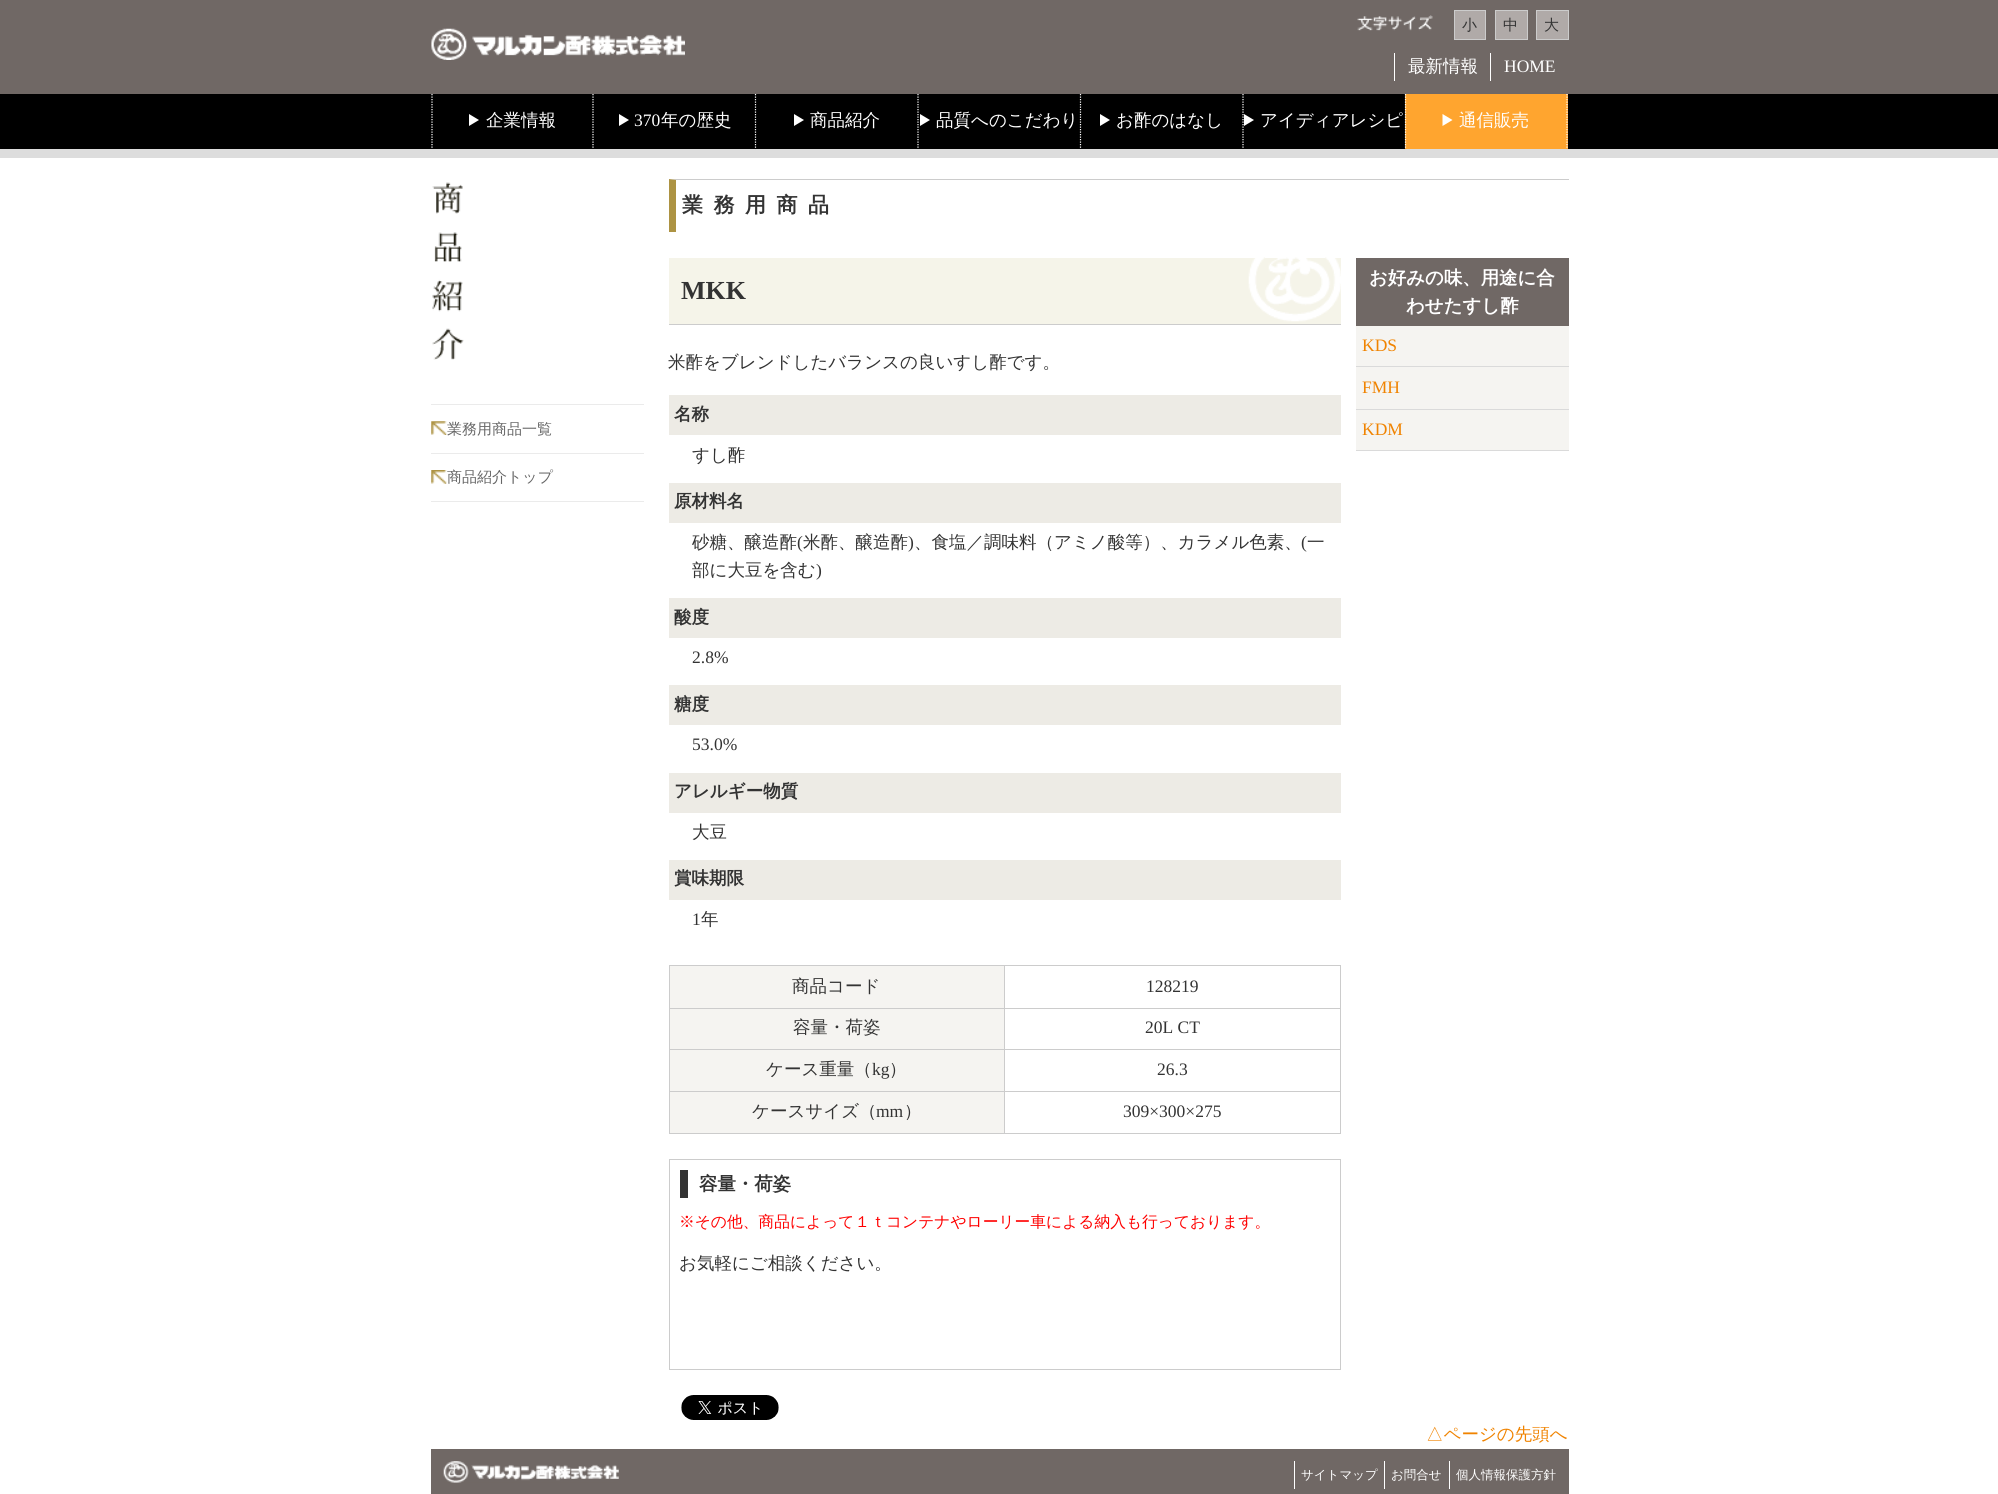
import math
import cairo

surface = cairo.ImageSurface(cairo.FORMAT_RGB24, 1998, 1494)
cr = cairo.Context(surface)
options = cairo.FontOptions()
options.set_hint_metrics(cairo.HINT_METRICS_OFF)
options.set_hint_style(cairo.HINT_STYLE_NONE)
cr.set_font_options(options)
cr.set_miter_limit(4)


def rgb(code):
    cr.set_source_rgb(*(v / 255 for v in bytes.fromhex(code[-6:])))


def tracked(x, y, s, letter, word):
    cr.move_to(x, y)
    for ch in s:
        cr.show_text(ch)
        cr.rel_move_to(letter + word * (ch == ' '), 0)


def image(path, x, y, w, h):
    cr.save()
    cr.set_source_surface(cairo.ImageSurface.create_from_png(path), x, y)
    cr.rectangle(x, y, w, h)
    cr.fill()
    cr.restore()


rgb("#ffffff")
cr.paint()
rgb("#706865")
cr.rectangle(0, 0, 1998, 94)
cr.fill()
rgb("#dddddd")
cr.rectangle(0, 149, 1998, 9)
cr.fill()
image("img/1.png", 431, 28, 254, 32)
image("img/2.png", 1357, 15, 76, 16)
rgb("#b0aaa8")
cr.rectangle(1454.5, 10.5, 31, 29)
cr.fill_preserve()
rgb("#cccccc")
cr.set_line_width(1)
cr.stroke()
rgb("#b0aaa8")
cr.rectangle(1495.5, 10.5, 32, 29)
cr.fill_preserve()
rgb("#cccccc")
cr.stroke()
rgb("#b0aaa8")
cr.rectangle(1536.5, 10.5, 32, 29)
cr.fill_preserve()
rgb("#cccccc")
cr.stroke()
for x, y, w, h, color in [
    (1394, 53, 1, 28, "#ffffff"),
    (1490, 53, 1, 28, "#ffffff"),
    (0, 94, 1998, 55, "#000000"),
]:
    rgb(color)
    cr.rectangle(x, y, w, h)
    cr.fill()
cr.new_path()
cr.move_to(432, 94)
cr.line_to(432, 149)
rgb("#ffffff")
cr.set_line_width(1.2)
cr.set_dash([1.25, 1.25])
cr.stroke()
cr.new_path()
cr.move_to(469, 126)
cr.line_to(469, 114)
cr.line_to(479, 120)
cr.close_path()
cr.fill()
cr.new_path()
cr.move_to(593, 94)
cr.line_to(593, 149)
cr.stroke()
cr.new_path()
cr.move_to(619, 126)
cr.line_to(619, 114)
cr.line_to(629, 120)
cr.close_path()
cr.fill()
cr.new_path()
cr.move_to(755.5, 94)
cr.line_to(755.5, 149)
cr.stroke()
cr.new_path()
cr.move_to(794, 126)
cr.line_to(794, 114)
cr.line_to(804, 120)
cr.close_path()
cr.fill()
cr.new_path()
cr.move_to(918, 94)
cr.line_to(918, 149)
cr.stroke()
cr.new_path()
cr.move_to(920, 126)
cr.line_to(920, 114)
cr.line_to(930, 120)
cr.close_path()
cr.fill()
cr.new_path()
cr.move_to(1080.5, 94)
cr.line_to(1080.5, 149)
cr.stroke()
cr.new_path()
cr.move_to(1100, 126)
cr.line_to(1100, 114)
cr.line_to(1110, 120)
cr.close_path()
cr.fill()
cr.new_path()
cr.move_to(1243, 94)
cr.line_to(1243, 149)
cr.stroke()
cr.new_path()
cr.move_to(1244, 126)
cr.line_to(1244, 114)
cr.line_to(1254, 120)
cr.close_path()
cr.fill()
rgb("#ffa52f")
cr.rectangle(1405, 94, 163, 55)
cr.fill()
cr.new_path()
cr.move_to(1567, 94)
cr.line_to(1567, 149)
rgb("#ffffff")
cr.stroke()
cr.new_path()
cr.move_to(1405.5, 94)
cr.line_to(1405.5, 149)
cr.stroke()
cr.new_path()
cr.move_to(1442.5, 126)
cr.line_to(1442.5, 114)
cr.line_to(1452.5, 120)
cr.close_path()
cr.fill()
image("img/3.png", 432, 182, 32, 178)
rgb("#ebebeb")
cr.rectangle(431, 501, 213, 1)
cr.fill()
cr.rectangle(431, 404, 213, 1)
cr.fill()
image("img/4.png", 431, 421, 16, 14)
cr.rectangle(431, 453, 213, 1)
cr.fill()
image("img/5.png", 431, 470, 16, 14)
rgb("#cccccc")
cr.new_path()
cr.move_to(669, 179)
cr.line_to(1569, 179)
cr.line_to(1569, 180)
cr.line_to(676, 180)
cr.close_path()
cr.fill()
rgb("#ad9343")
cr.new_path()
cr.move_to(669, 232)
cr.line_to(669, 179)
cr.line_to(676, 180)
cr.line_to(676, 232)
cr.close_path()
cr.fill()
rgb("#f5f4e9")
cr.rectangle(669, 258, 672, 66)
cr.fill()
image("img/6.png", 1248, 257, 93, 65)
for x, y, w, h, color in [
    (669, 324, 672, 1, "#cccccc"),
    (669, 395, 672, 40, "#edebe5"),
    (669, 483, 672, 40, "#edebe5"),
    (669, 598, 672, 40, "#edebe5"),
    (669, 685, 672, 40, "#edebe5"),
    (669, 773, 672, 40, "#edebe5"),
    (669, 860, 672, 40, "#edebe5"),
    (669, 965, 672, 1, "#cccccc"),
    (1340, 965, 1, 169, "#cccccc"),
    (669, 1133, 672, 1, "#cccccc"),
    (669, 965, 1, 169, "#cccccc"),
    (670, 966, 334, 42, "#f5f4f1"),
    (1004, 1008, 337, 1, "#cccccc"),
    (1004, 1049, 337, 1, "#cccccc"),
    (1004, 1091, 337, 1, "#cccccc"),
    (1004, 1091, 1, 43, "#cccccc"),
    (669, 1091, 336, 1, "#cccccc"),
    (1004, 1049, 1, 44, "#cccccc"),
    (669, 1049, 336, 1, "#cccccc"),
    (1004, 1008, 1, 42, "#cccccc"),
    (669, 1008, 336, 1, "#cccccc"),
    (1004, 965, 1, 44, "#cccccc"),
    (670, 1009, 334, 40, "#f5f4f1"),
    (670, 1050, 334, 41, "#f5f4f1"),
    (670, 1092, 334, 41, "#f5f4f1"),
]:
    rgb(color)
    cr.rectangle(x, y, w, h)
    cr.fill()
cr.rectangle(669.5, 1159.5, 671, 210)
rgb("#cccccc")
cr.set_line_width(1)
cr.set_dash([])
cr.stroke()
for x, y, w, h, color in [
    (680, 1170, 8, 28, "#333333"),
    (1356, 326, 213, 124, "#f5f4f1"),
    (1356, 258, 213, 68, "#706865"),
    (1356, 366, 213, 1, "#dadada"),
    (1356, 409, 213, 1, "#dadada"),
    (1356, 450, 213, 1, "#dadada"),
]:
    rgb(color)
    cr.rectangle(x, y, w, h)
    cr.fill()
image("img/7.png", 681, 1395, 98, 25)
rgb("#706865")
cr.rectangle(431, 1449, 1138, 45)
cr.fill()
image("img/8.png", 443, 1461, 176, 22)
for x, y, w, h, color in [
    (1294, 1461, 1, 28, "#ffffff"),
    (1384, 1461, 1, 28, "#ffffff"),
    (1449, 1461, 1, 28, "#ffffff"),
]:
    rgb(color)
    cr.rectangle(x, y, w, h)
    cr.fill()
cr.select_font_face("WenQuanYi Zen Hei Medium")
cr.set_font_size(15)
rgb("#333333")
for x, y, s in [
    (1462, 30, "小"),
    (1503, 30, "中"),
    (1544, 30, "大"),
]:
    cr.move_to(x, y)
    cr.show_text(s)
cr.set_font_size(17.5)
rgb("#ffffff")
cr.move_to(1408, 72)
cr.show_text("最新情報")
cr.select_font_face("Liberation Serif")
cr.move_to(1504, 72)
cr.show_text("HOME")
cr.select_font_face("WenQuanYi Zen Hei Medium")
cr.move_to(486, 126)
cr.show_text("企業情報")
cr.select_font_face("Liberation Serif")
cr.move_to(634, 126)
cr.show_text("370")
cr.select_font_face("WenQuanYi Zen Hei Medium")
for x, y, s in [
    (661, 126, "年の歴史"),
    (810, 126, "商品紹介"),
    (936, 126, "品質へのこだわり"),
    (1116, 126, "お酢のはなし"),
    (1260, 126, "アイディアレシピ"),
    (1459, 126, "通信販売"),
]:
    cr.move_to(x, y)
    cr.show_text(s)
cr.set_font_size(15)
rgb("#666666")
cr.move_to(447, 434)
cr.show_text("業務用商品一覧")
cr.move_to(447, 482)
cr.show_text("商品紹介トップ")
cr.select_font_face("WenQuanYi Zen Hei", cairo.FONT_SLANT_NORMAL, cairo.FONT_WEIGHT_BOLD)
cr.set_font_size(21)
rgb("#333333")
tracked(682, 212, "業務用商品", 10.5, 0)
cr.select_font_face("Liberation Serif", cairo.FONT_SLANT_NORMAL, cairo.FONT_WEIGHT_BOLD)
cr.set_font_size(26)
cr.move_to(681, 299)
cr.show_text("MKK")
cr.select_font_face("WenQuanYi Zen Hei Medium")
cr.set_font_size(17.5)
cr.move_to(668, 368)
cr.show_text("米酢をブレンドしたバランスの良いすし酢です。")
cr.select_font_face("WenQuanYi Zen Hei", cairo.FONT_SLANT_NORMAL, cairo.FONT_WEIGHT_BOLD)
cr.move_to(674, 420)
cr.show_text("名称")
cr.select_font_face("WenQuanYi Zen Hei Medium")
cr.move_to(692, 461)
cr.show_text("すし酢")
cr.select_font_face("WenQuanYi Zen Hei", cairo.FONT_SLANT_NORMAL, cairo.FONT_WEIGHT_BOLD)
cr.move_to(674, 507)
cr.show_text("原材料名")
cr.select_font_face("WenQuanYi Zen Hei Medium")
cr.move_to(692, 548)
cr.show_text("砂糖、醸造酢")
cr.select_font_face("Liberation Serif")
cr.move_to(797, 548)
cr.show_text("(")
cr.select_font_face("WenQuanYi Zen Hei Medium")
cr.move_to(803, 548)
cr.show_text("米酢、醸造酢")
cr.select_font_face("Liberation Serif")
cr.move_to(908, 548)
cr.show_text(")")
cr.select_font_face("WenQuanYi Zen Hei Medium")
cr.move_to(914, 548)
cr.show_text("、食塩／調味料（アミノ酸等）、カラメル色素、")
cr.select_font_face("Liberation Serif")
cr.move_to(1301, 548)
cr.show_text("(")
cr.select_font_face("WenQuanYi Zen Hei Medium")
cr.move_to(1307, 548)
cr.show_text("一")
cr.move_to(692, 576)
cr.show_text("部に大豆を含む")
cr.select_font_face("Liberation Serif")
cr.move_to(816, 576)
cr.show_text(")")
cr.select_font_face("WenQuanYi Zen Hei", cairo.FONT_SLANT_NORMAL, cairo.FONT_WEIGHT_BOLD)
cr.move_to(674, 623)
cr.show_text("酸度")
cr.select_font_face("Liberation Serif")
cr.move_to(692, 663)
cr.show_text("2.8%")
cr.select_font_face("WenQuanYi Zen Hei", cairo.FONT_SLANT_NORMAL, cairo.FONT_WEIGHT_BOLD)
cr.move_to(674, 710)
cr.show_text("糖度")
cr.select_font_face("Liberation Serif")
cr.move_to(692, 750)
cr.show_text("53.0%")
cr.select_font_face("WenQuanYi Zen Hei", cairo.FONT_SLANT_NORMAL, cairo.FONT_WEIGHT_BOLD)
cr.move_to(674, 797)
cr.show_text("アレルギー物質")
cr.select_font_face("WenQuanYi Zen Hei Medium")
cr.move_to(692, 838)
cr.show_text("大豆")
cr.select_font_face("WenQuanYi Zen Hei", cairo.FONT_SLANT_NORMAL, cairo.FONT_WEIGHT_BOLD)
cr.move_to(674, 884)
cr.show_text("賞味期限")
cr.select_font_face("Liberation Serif")
cr.move_to(692, 925)
cr.show_text("1")
cr.select_font_face("WenQuanYi Zen Hei Medium")
cr.move_to(701, 925)
cr.show_text("年")
cr.move_to(792, 992)
cr.show_text("商品コード")
cr.select_font_face("Liberation Serif")
cr.move_to(1146, 992)
cr.show_text("128219")
cr.select_font_face("WenQuanYi Zen Hei Medium")
cr.move_to(793, 1033)
cr.show_text("容量・荷姿")
cr.select_font_face("Liberation Serif")
cr.move_to(1145, 1033)
cr.show_text("20L CT")
cr.select_font_face("WenQuanYi Zen Hei Medium")
cr.move_to(766, 1075)
cr.show_text("ケース重量（")
cr.select_font_face("Liberation Serif")
cr.move_to(872, 1075)
cr.show_text("kg")
cr.select_font_face("WenQuanYi Zen Hei Medium")
cr.move_to(889, 1075)
cr.show_text("）")
cr.select_font_face("Liberation Serif")
cr.move_to(1157, 1075)
cr.show_text("26.3")
cr.select_font_face("WenQuanYi Zen Hei Medium")
cr.move_to(752, 1117)
cr.show_text("ケースサイズ（")
cr.select_font_face("Liberation Serif")
cr.move_to(876, 1117)
cr.show_text("mm")
cr.select_font_face("WenQuanYi Zen Hei Medium")
cr.move_to(904, 1117)
cr.show_text("）")
cr.select_font_face("Liberation Serif")
cr.move_to(1123, 1117)
cr.show_text("309×300×275")
cr.select_font_face("WenQuanYi Zen Hei", cairo.FONT_SLANT_NORMAL, cairo.FONT_WEIGHT_BOLD)
cr.set_font_size(18.4)
cr.move_to(699, 1190)
cr.show_text("容量・荷姿")
cr.select_font_face("WenQuanYi Zen Hei Medium")
cr.set_font_size(15.75)
rgb("#ff0000")
cr.move_to(679, 1227)
cr.show_text("※その他、商品によって１ｔコンテナやローリー車による納入も行っております。")
cr.set_font_size(17.5)
rgb("#333333")
cr.move_to(679, 1269)
cr.show_text("お気軽にご相談ください。")
cr.select_font_face("WenQuanYi Zen Hei", cairo.FONT_SLANT_NORMAL, cairo.FONT_WEIGHT_BOLD)
cr.set_font_size(18.4)
rgb("#ffffff")
cr.move_to(1369, 284)
cr.show_text("お好みの味、用途に合")
cr.move_to(1406, 312)
cr.show_text("わせたすし酢")
cr.select_font_face("Liberation Serif")
cr.set_font_size(17.5)
rgb("#f08300")
for x, y, s in [
    (1362, 351, "KDS"),
    (1362, 393, "FMH"),
    (1362, 435, "KDM"),
]:
    cr.move_to(x, y)
    cr.show_text(s)
cr.select_font_face("WenQuanYi Zen Hei Medium")
cr.move_to(1426, 1440)
cr.show_text("△ページの先頭へ")
cr.set_font_size(12.5)
rgb("#ffffff")
for x, y, s in [
    (1301, 1479, "サイトマップ"),
    (1391, 1479, "お問合せ"),
    (1456, 1479, "個人情報保護方針"),
]:
    cr.move_to(x, y)
    cr.show_text(s)
surface.write_to_png("page.png")
